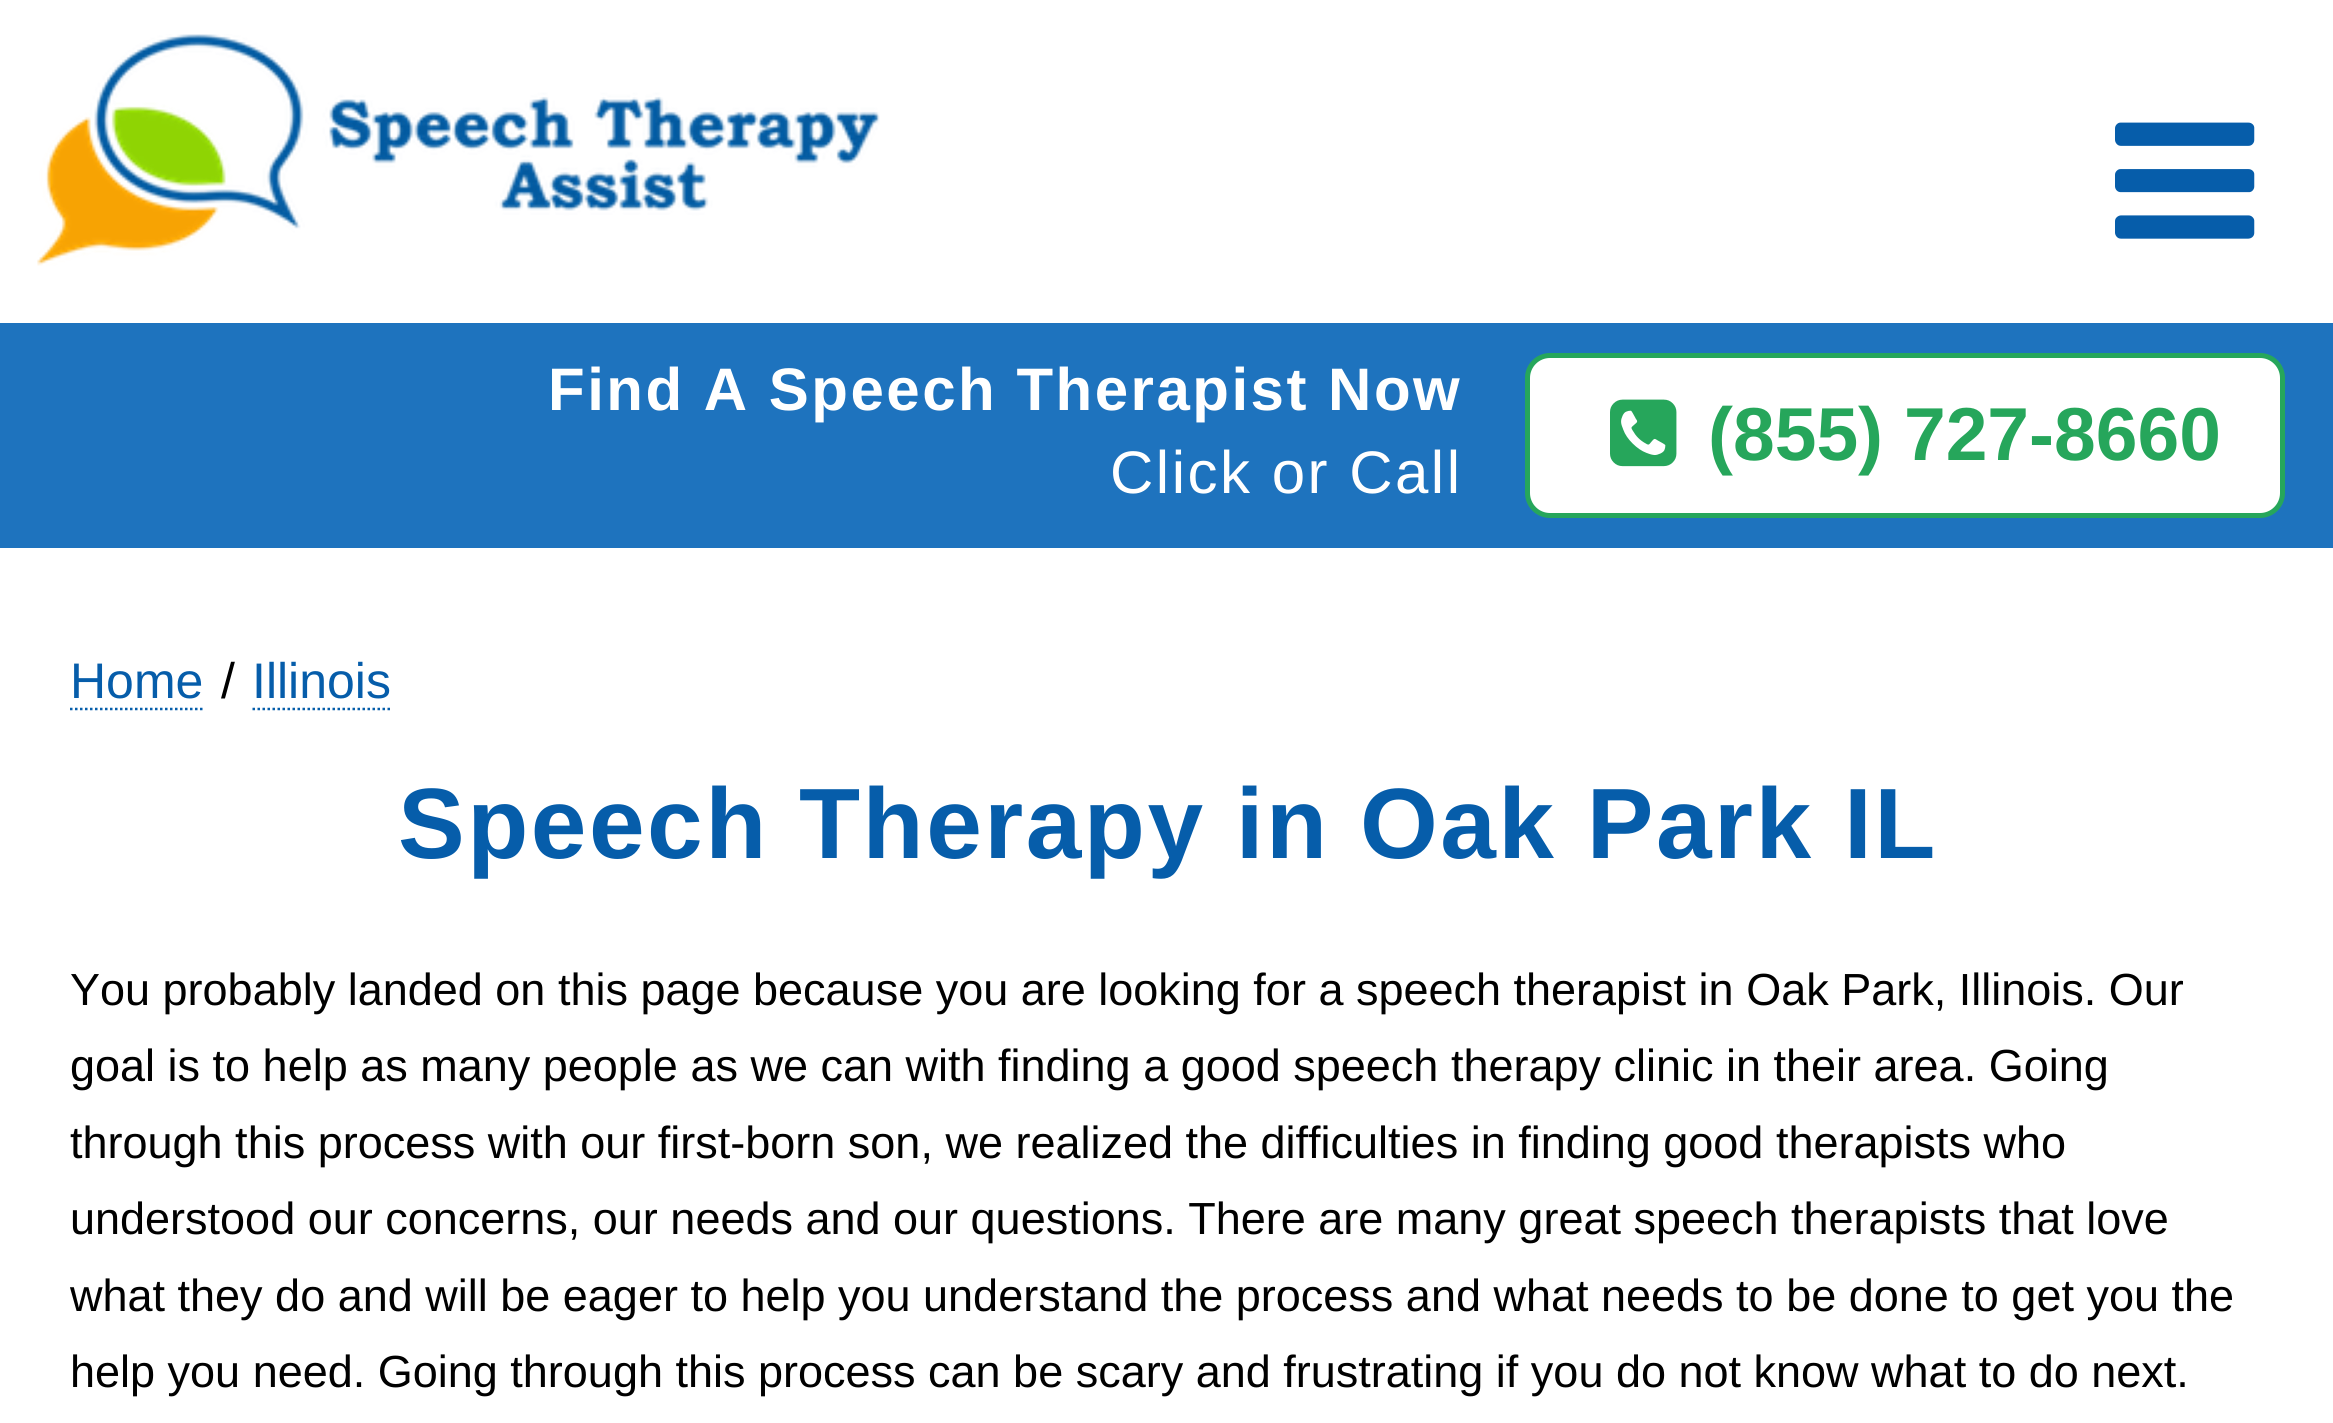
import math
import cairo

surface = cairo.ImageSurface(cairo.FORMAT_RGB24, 2333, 1423)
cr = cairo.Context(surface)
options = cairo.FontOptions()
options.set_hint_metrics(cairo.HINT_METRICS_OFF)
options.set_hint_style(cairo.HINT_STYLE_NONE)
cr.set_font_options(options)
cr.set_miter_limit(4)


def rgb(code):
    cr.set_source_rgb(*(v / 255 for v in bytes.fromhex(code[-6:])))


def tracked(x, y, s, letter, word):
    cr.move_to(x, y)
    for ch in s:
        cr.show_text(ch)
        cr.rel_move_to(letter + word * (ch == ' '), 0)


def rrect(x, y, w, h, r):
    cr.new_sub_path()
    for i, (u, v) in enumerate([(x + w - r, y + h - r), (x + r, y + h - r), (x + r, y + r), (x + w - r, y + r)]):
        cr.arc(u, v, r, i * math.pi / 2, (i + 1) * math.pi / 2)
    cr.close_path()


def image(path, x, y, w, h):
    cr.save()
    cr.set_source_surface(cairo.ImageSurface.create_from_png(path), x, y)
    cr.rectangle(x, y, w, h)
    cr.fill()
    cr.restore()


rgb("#ffffff")
cr.paint()
image("img/1.png", 37, 34, 843, 232)
image("img/2.png", 2115, 122, 140, 117)
rgb("#1e73be")
cr.rectangle(0, 323, 2333, 225)
cr.fill()
rgb("#ffffff")
rrect(1527.5, 355.5, 755, 160, 22.5)
cr.fill_preserve()
rgb("#26a65b")
cr.set_line_width(5)
cr.stroke()
image("img/3.png", 1610, 399, 67, 68)
cr.new_path()
cr.move_to(70, 709)
cr.line_to(202.5, 709)
rgb("#065daa")
cr.set_line_width(2.5)
cr.set_dash([2.5, 2.5])
cr.stroke()
cr.new_path()
cr.move_to(252.5, 709)
cr.line_to(392.5, 709)
cr.stroke()
cr.select_font_face("Liberation Sans", cairo.FONT_SLANT_NORMAL, cairo.FONT_WEIGHT_BOLD)
cr.set_font_size(60)
rgb("#ffffff")
tracked(548, 410, "Find A Speech Therapist Now", 2.5, 0)
cr.select_font_face("Liberation Sans")
tracked(1110, 493, "Click or Call", 2.5, 0)
cr.select_font_face("Liberation Sans", cairo.FONT_SLANT_NORMAL, cairo.FONT_WEIGHT_BOLD)
cr.set_font_size(75)
rgb("#26a65b")
cr.move_to(1708, 460)
cr.show_text("(855) 727-8660")
cr.select_font_face("Liberation Sans")
cr.set_font_size(50)
rgb("#065daa")
cr.move_to(70, 698)
cr.show_text("Home")
rgb("#000000")
cr.move_to(221, 698)
cr.show_text("/")
rgb("#065daa")
cr.move_to(252, 698)
cr.show_text("Illinois")
cr.select_font_face("Liberation Sans", cairo.FONT_SLANT_NORMAL, cairo.FONT_WEIGHT_BOLD)
cr.set_font_size(100)
tracked(398, 858, "Speech Therapy in Oak Park IL", 2.5, 0)
cr.select_font_face("Liberation Sans")
cr.set_font_size(45)
rgb("#000000")
for x, y, s in [
    (70, 1005, "You probably landed on this page because you are looking for a speech therapist in Oak Park, Illinois. Our"),
    (70, 1081, "goal is to help as many people as we can with finding a good speech therapy clinic in their area. Going"),
    (70, 1158, "through this process with our first-born son, we realized the difficulties in finding good therapists who"),
    (70, 1234, "understood our concerns, our needs and our questions. There are many great speech therapists that love"),
    (70, 1311, "what they do and will be eager to help you understand the process and what needs to be done to get you the"),
    (70, 1387, "help you need. Going through this process can be scary and frustrating if you do not know what to do next."),
]:
    cr.move_to(x, y)
    cr.show_text(s)
surface.write_to_png("page.png")
